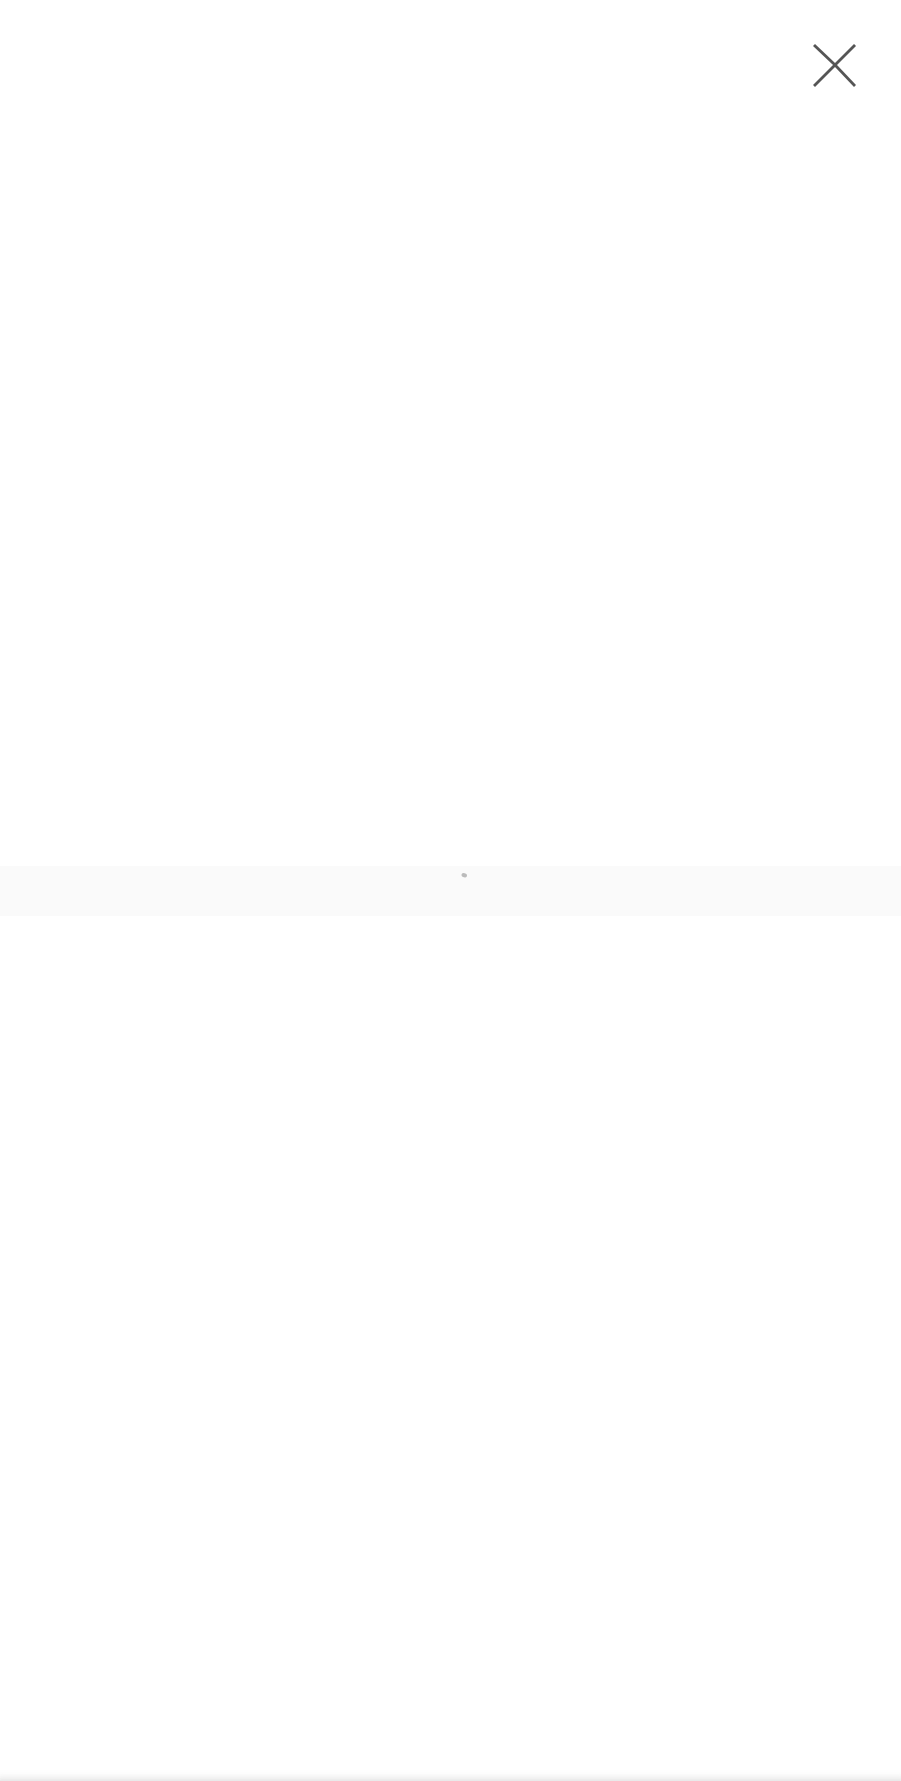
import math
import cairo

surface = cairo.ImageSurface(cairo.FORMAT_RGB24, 901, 1781)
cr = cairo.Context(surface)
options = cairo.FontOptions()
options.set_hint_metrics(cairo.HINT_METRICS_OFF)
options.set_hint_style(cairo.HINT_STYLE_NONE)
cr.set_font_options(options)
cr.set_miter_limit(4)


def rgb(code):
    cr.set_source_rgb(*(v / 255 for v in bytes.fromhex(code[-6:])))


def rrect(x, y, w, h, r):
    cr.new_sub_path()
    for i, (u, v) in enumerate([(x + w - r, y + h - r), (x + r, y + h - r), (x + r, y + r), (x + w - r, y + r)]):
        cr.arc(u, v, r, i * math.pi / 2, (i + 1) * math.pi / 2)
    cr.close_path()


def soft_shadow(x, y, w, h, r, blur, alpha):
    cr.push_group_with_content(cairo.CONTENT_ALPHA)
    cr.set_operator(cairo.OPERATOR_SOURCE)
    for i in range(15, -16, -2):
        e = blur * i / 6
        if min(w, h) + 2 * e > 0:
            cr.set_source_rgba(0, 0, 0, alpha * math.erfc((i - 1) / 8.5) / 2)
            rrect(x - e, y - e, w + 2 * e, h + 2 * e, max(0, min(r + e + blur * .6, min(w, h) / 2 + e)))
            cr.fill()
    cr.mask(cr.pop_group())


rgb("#ffffff")
cr.paint()
rgb("#555555")
cr.new_path()
cr.move_to(856, 46)
cr.line_to(854, 44)
cr.line_to(835, 63)
cr.line_to(815, 44)
cr.line_to(813, 46)
cr.line_to(833, 65)
cr.line_to(813, 85)
cr.line_to(815, 87)
cr.line_to(835, 67)
cr.line_to(854, 87)
cr.line_to(856, 85)
cr.line_to(837, 65)
cr.close_path()
cr.fill()
rgb("#fafafa")
cr.rectangle(0, 866, 901, 50)
cr.fill()
cr.new_path()
cr.move_to(463.5, 875)
cr.line_to(465, 875.5)
rgb("#bbbbbb")
cr.set_line_width(4)
cr.set_line_cap(cairo.LINE_CAP_ROUND)
cr.stroke()
rgb("#000000")
soft_shadow(0, 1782, 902, 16, 0, 5.5, 0.23)
surface.write_to_png("page.png")
